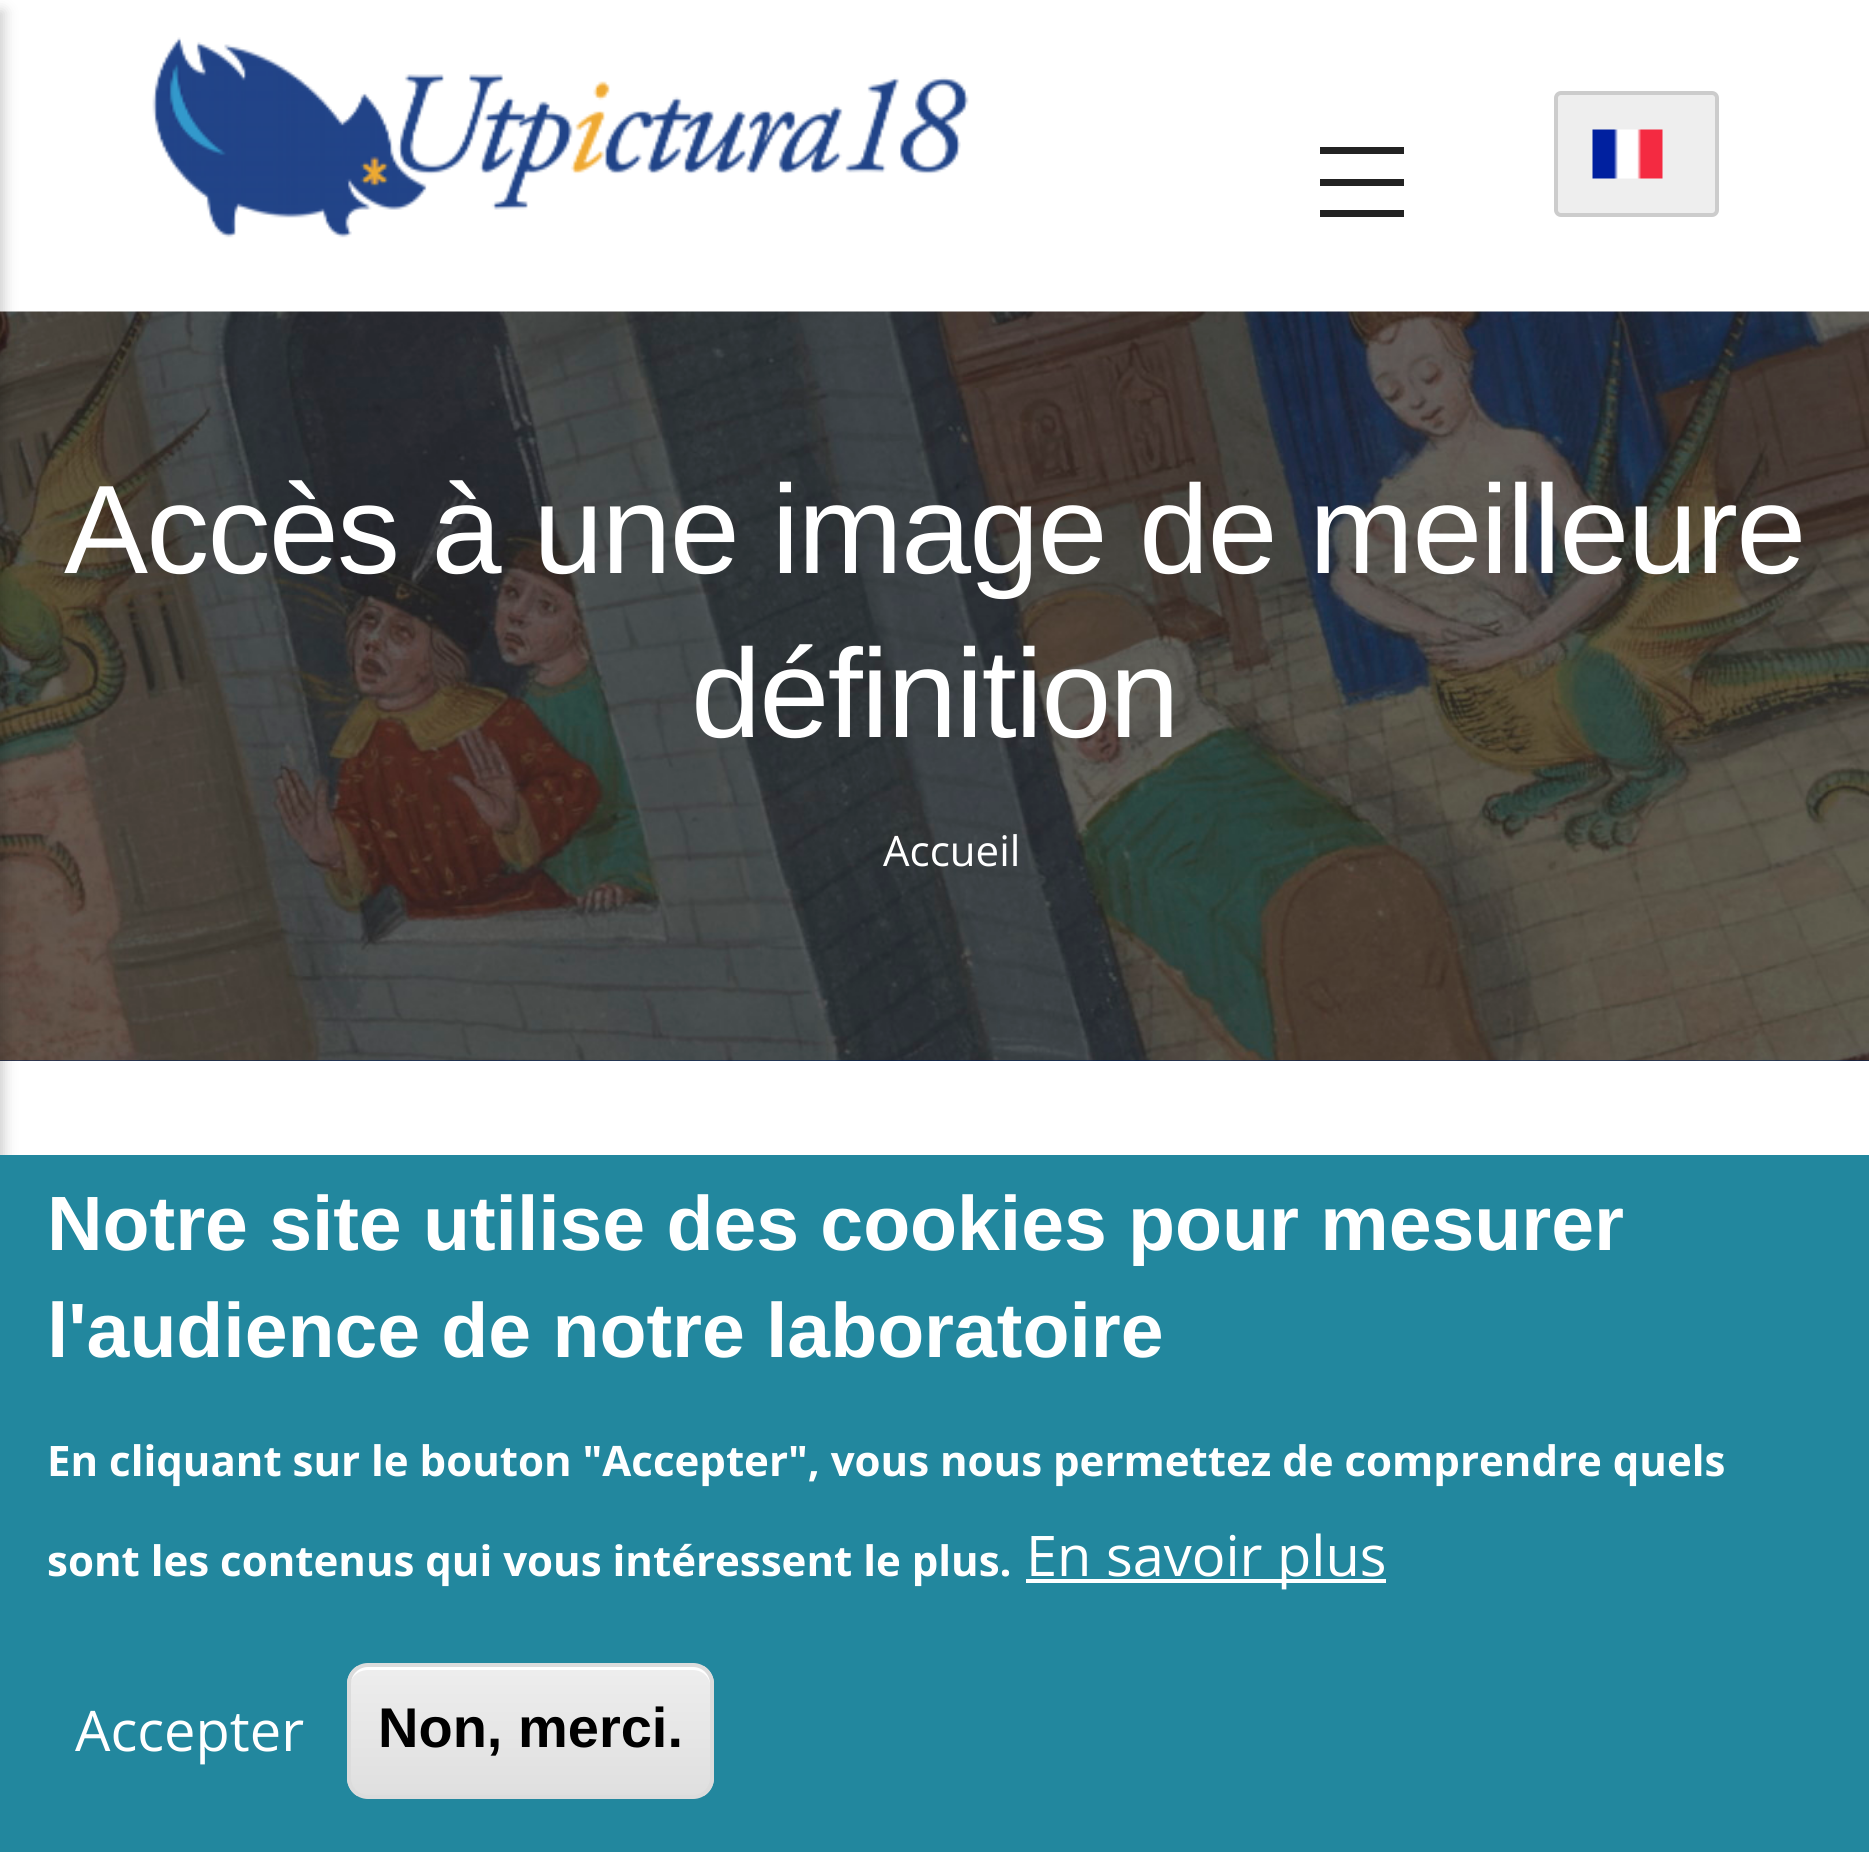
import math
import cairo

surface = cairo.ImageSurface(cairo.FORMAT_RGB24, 1869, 1852)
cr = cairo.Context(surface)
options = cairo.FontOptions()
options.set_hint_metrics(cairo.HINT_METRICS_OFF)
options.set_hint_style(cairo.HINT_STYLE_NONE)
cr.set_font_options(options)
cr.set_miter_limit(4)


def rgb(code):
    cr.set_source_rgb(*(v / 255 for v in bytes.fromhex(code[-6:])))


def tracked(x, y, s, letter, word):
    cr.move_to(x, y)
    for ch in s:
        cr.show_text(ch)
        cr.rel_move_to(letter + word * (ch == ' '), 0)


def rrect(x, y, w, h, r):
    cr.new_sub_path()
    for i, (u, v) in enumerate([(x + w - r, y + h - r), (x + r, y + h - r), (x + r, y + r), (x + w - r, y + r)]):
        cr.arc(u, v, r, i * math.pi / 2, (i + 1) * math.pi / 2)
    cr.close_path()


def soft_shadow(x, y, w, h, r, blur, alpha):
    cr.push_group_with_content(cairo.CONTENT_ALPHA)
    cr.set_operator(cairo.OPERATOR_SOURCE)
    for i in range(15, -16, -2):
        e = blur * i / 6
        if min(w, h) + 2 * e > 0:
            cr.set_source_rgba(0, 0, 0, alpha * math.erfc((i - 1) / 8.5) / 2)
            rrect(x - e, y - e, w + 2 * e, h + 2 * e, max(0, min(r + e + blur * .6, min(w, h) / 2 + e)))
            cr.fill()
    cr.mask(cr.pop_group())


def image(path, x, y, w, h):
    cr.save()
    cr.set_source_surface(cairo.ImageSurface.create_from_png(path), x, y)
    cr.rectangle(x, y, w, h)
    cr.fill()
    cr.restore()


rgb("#ffffff")
cr.paint()
rgb("#01205a")
cr.rectangle(0, 1060, 1869, 1)
cr.fill()
image("img/3.png", 0, 311, 1869, 750)
rgb("#000000")
soft_shadow(-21, 11, 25, 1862, 0, 7, 0.2)
for x, y, w, h, color in [
    (1320, 147, 84, 7, "#222222"),
    (1320, 179, 84, 7, "#222222"),
    (1320, 210, 84, 7, "#222222"),
]:
    rgb(color)
    cr.rectangle(x, y, w, h)
    cr.fill()
image("img/1.png", 152, 37, 817, 201)
rgb("#eeeeee")
rrect(1556, 93, 161, 122, 5)
cr.fill_preserve()
rgb("#cccccc")
cr.set_line_width(4)
cr.stroke()
image("img/2.png", 1592, 129, 71, 50)
rgb("#22879e")
cr.rectangle(0, 1155, 1869, 697)
cr.fill()
rgb("#ffffff")
cr.rectangle(1026, 1579, 360, 4)
cr.fill()
cr.save()
rrect(347, 1663, 367, 136, 21)
cr.clip()
gradient = cairo.LinearGradient(530, 1666, 530, 1796)
gradient.add_color_stop_rgba(0.05, 0.929, 0.929, 0.929, 1)
gradient.add_color_stop_rgba(1, 0.875, 0.875, 0.875, 1)
cr.set_source(gradient)
cr.rectangle(347, 1666, 367, 130)
cr.fill()
cr.restore()
cr.new_path()
cr.move_to(368, 1670)
cr.line_to(693, 1670)
cr.curve_to(701, 1670, 708, 1675, 710, 1683)
cr.line_to(710, 1784)
cr.curve_to(711, 1782, 711, 1780, 711, 1778)
cr.line_to(711, 1684)
cr.curve_to(711, 1674, 703, 1666, 693, 1666)
cr.line_to(368, 1666)
cr.curve_to(358, 1666, 350, 1674, 350, 1684)
cr.line_to(350, 1687)
cr.curve_to(350, 1677, 358, 1670, 368, 1670)
cr.close_path()
cr.fill()
rrect(349, 1665, 363, 132, 19)
rgb("#dcdcdc")
cr.stroke()
cr.select_font_face("Liberation Sans")
cr.set_font_size(126)
rgb("#ffffff")
tracked(64, 573, "Accès à une image de meilleure", -1.75, 0)
tracked(691, 737, "définition", -1.75, 0)
cr.select_font_face("Open Sans")
cr.set_font_size(42)
cr.move_to(883, 866)
cr.show_text("Accueil")
cr.select_font_face("Liberation Sans", cairo.FONT_SLANT_NORMAL, cairo.FONT_WEIGHT_BOLD)
cr.set_font_size(77)
tracked(47, 1250, "Notre site utilise des cookies pour mesurer", -0.05, 0)
tracked(47, 1357, "l'audience de notre laboratoire", -0.05, 0)
cr.select_font_face("Open Sans", cairo.FONT_SLANT_NORMAL, cairo.FONT_WEIGHT_BOLD)
cr.set_font_size(42)
cr.move_to(47, 1476)
cr.show_text("En cliquant sur le bouton \"Accepter\", vous nous permettez de comprendre quels")
cr.move_to(47, 1576)
cr.show_text("sont les contenus qui vous intéressent le plus.")
cr.select_font_face("Open Sans")
cr.set_font_size(56)
cr.move_to(1026, 1576)
cr.show_text("En savoir plus")
cr.move_to(75, 1751)
cr.show_text("Accepter")
cr.select_font_face("Liberation Sans", cairo.FONT_SLANT_NORMAL, cairo.FONT_WEIGHT_BOLD)
rgb("#000000")
cr.move_to(378, 1747)
cr.show_text("Non, merci.")
surface.write_to_png("page.png")
